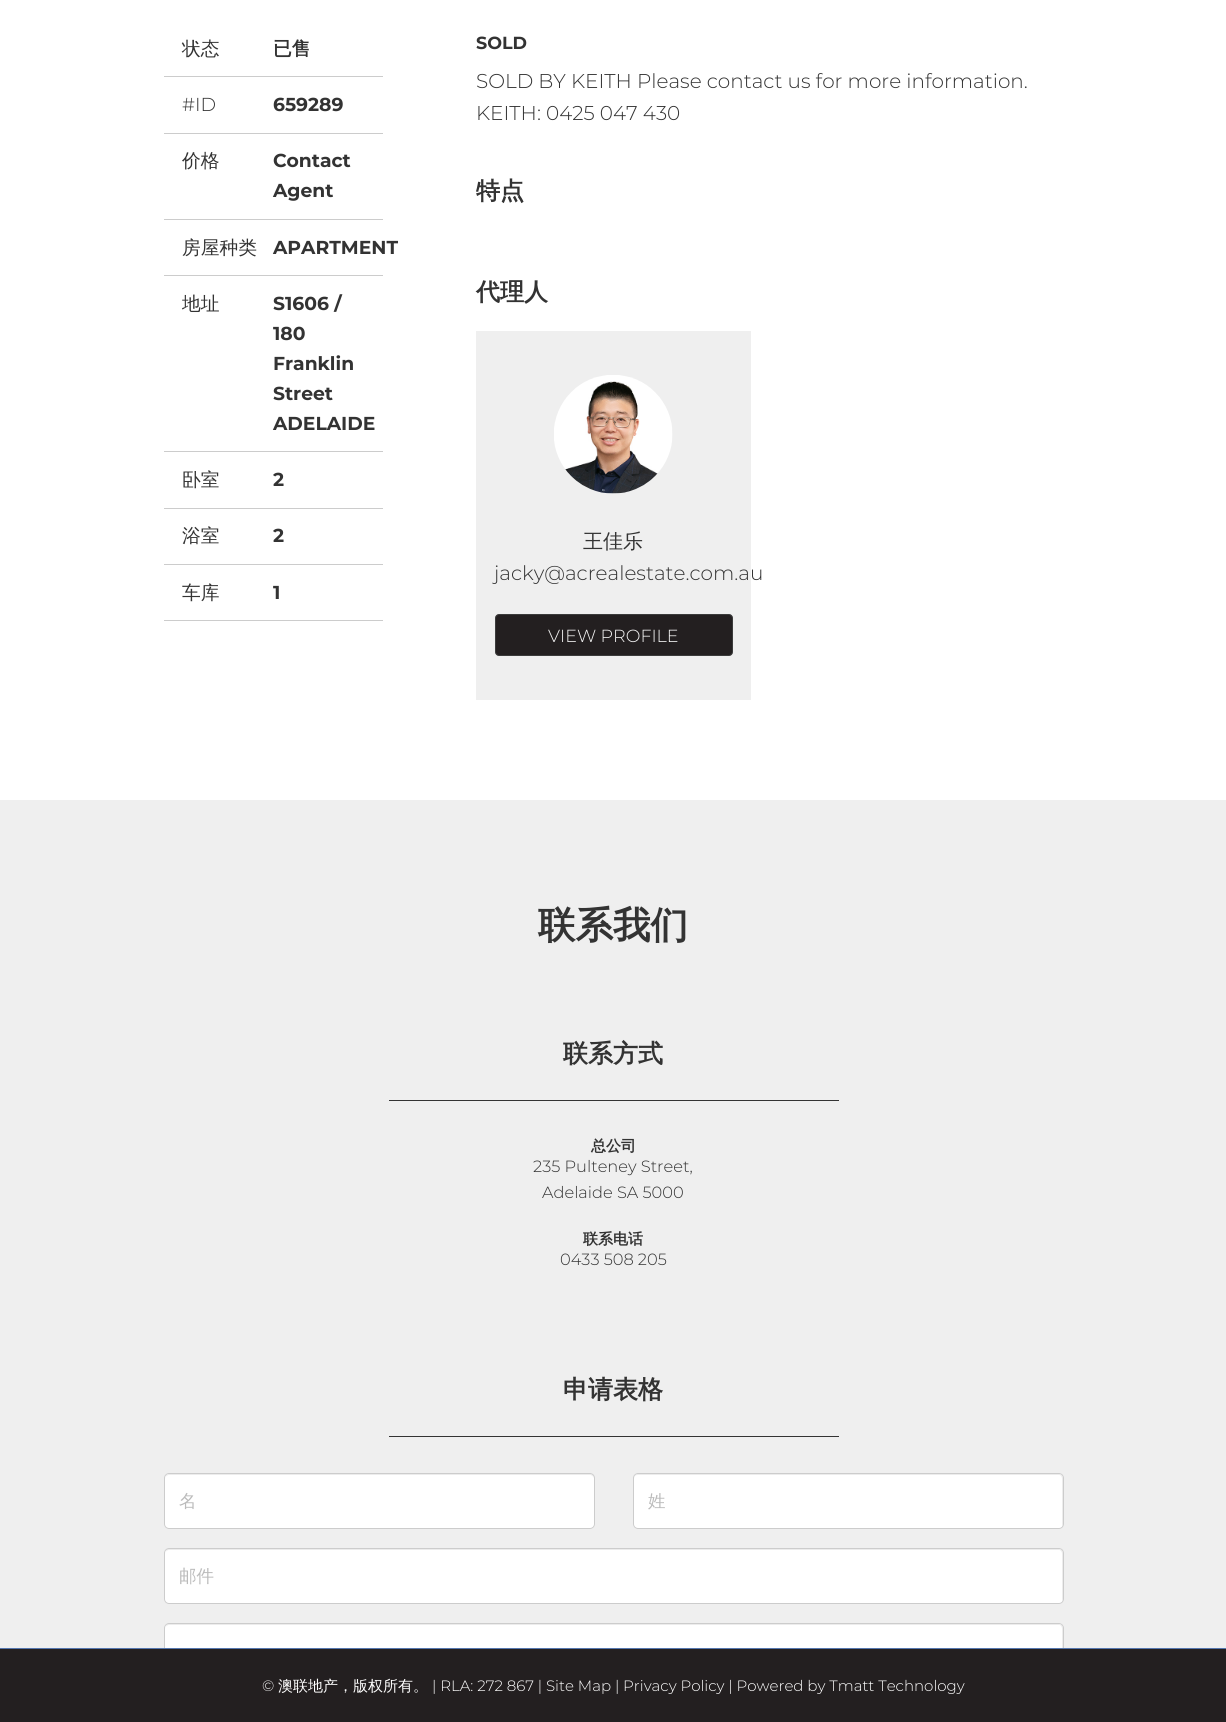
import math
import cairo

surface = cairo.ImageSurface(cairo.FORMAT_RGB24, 1226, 1722)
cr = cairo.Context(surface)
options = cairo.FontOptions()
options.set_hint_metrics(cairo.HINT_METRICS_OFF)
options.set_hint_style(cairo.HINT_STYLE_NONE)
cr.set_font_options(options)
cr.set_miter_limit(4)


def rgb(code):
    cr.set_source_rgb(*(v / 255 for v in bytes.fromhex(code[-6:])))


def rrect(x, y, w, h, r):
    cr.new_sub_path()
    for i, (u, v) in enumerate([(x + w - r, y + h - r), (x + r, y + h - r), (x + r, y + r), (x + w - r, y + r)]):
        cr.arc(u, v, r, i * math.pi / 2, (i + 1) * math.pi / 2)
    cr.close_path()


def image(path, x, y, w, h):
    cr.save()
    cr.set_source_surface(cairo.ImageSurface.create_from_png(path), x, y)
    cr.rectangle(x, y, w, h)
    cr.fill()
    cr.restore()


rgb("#ffffff")
cr.paint()
for x, y, w, h, color in [
    (164, 76, 219, 1, "#cccccc"),
    (164, 133, 219, 1, "#cccccc"),
    (164, 219, 219, 1, "#cccccc"),
    (164, 275, 219, 1, "#cccccc"),
    (164, 451, 219, 1, "#cccccc"),
    (164, 508, 219, 1, "#cccccc"),
    (164, 564, 219, 1, "#cccccc"),
    (164, 620, 219, 1, "#cccccc"),
    (476, 331, 275, 369, "#efefef"),
]:
    rgb(color)
    cr.rectangle(x, y, w, h)
    cr.fill()
image("img/1.png", 554, 375, 119, 119)
rgb("#231f20")
rrect(495.5, 614.5, 237, 41, 3.5)
cr.fill_preserve()
rgb("#3b3b3b")
cr.set_line_width(1)
cr.stroke()
for x, y, w, h, color in [
    (0, 800, 1226, 848, "#efefef"),
    (389, 1100, 450, 1, "#333333"),
    (389, 1436, 450, 1, "#333333"),
]:
    rgb(color)
    cr.rectangle(x, y, w, h)
    cr.fill()
rgb("#ffffff")
rrect(164, 1473, 431, 56, 5)
cr.fill()
rgb("#ececec")
cr.new_path()
cr.move_to(169, 1475)
cr.line_to(590, 1475)
cr.curve_to(592, 1475, 594, 1477, 594, 1479)
cr.curve_to(594, 1476, 593, 1474, 590, 1474)
cr.line_to(169, 1474)
cr.curve_to(168, 1474, 166, 1475, 166, 1476)
cr.line_to(165, 1479)
cr.curve_to(165, 1477, 167, 1475, 169, 1475)
cr.close_path()
cr.fill()
rrect(164.5, 1473.5, 430, 55, 4.5)
rgb("#cccccc")
cr.stroke()
rgb("#ffffff")
rrect(633, 1473, 431, 56, 5)
cr.fill()
rgb("#ececec")
cr.new_path()
cr.move_to(638, 1475)
cr.line_to(1059, 1475)
cr.curve_to(1061, 1475, 1062, 1477, 1062, 1479)
cr.line_to(1062, 1525)
cr.line_to(1062, 1527)
cr.curve_to(1062, 1526, 1063, 1525, 1063, 1524)
cr.line_to(1063, 1478)
cr.curve_to(1063, 1476, 1061, 1474, 1059, 1474)
cr.line_to(638, 1474)
cr.curve_to(636, 1474, 634, 1476, 634, 1478)
cr.line_to(634, 1479)
cr.curve_to(634, 1477, 635, 1475, 638, 1475)
cr.close_path()
cr.fill()
rrect(633.5, 1473.5, 430, 55, 4.5)
rgb("#cccccc")
cr.stroke()
rgb("#ffffff")
rrect(164, 1548, 900, 56, 5)
cr.fill()
rgb("#ececec")
cr.new_path()
cr.move_to(169, 1550)
cr.line_to(1059, 1550)
cr.curve_to(1061, 1550, 1062, 1552, 1062, 1554)
cr.line_to(1062, 1600)
cr.line_to(1062, 1602)
cr.line_to(1063, 1599)
cr.line_to(1063, 1552)
cr.line_to(1062, 1550)
cr.line_to(1059, 1549)
cr.line_to(167, 1549)
cr.line_to(166, 1551)
cr.line_to(165, 1554)
cr.curve_to(165, 1552, 167, 1550, 169, 1550)
cr.close_path()
cr.fill()
rrect(164.5, 1548.5, 899, 55, 4.5)
rgb("#cccccc")
cr.stroke()
rgb("#ffffff")
cr.new_path()
cr.move_to(169, 1623)
cr.line_to(1059, 1623)
cr.curve_to(1062, 1623, 1064, 1625, 1064, 1628)
cr.line_to(1064, 1648)
cr.line_to(164, 1648)
cr.line_to(164, 1628)
cr.curve_to(164, 1625, 166, 1623, 169, 1623)
cr.close_path()
cr.fill()
cr.save()
cr.rectangle(0, 800, 1226, 848)
cr.clip()
rgb("#ececec")
cr.new_path()
cr.move_to(169, 1625)
cr.line_to(1059, 1625)
cr.curve_to(1061, 1625, 1062, 1627, 1062, 1629)
cr.line_to(1062, 1675)
cr.line_to(1062, 1677)
cr.line_to(1063, 1674)
cr.line_to(1063, 1627)
cr.line_to(1062, 1625)
cr.line_to(1059, 1624)
cr.line_to(167, 1624)
cr.line_to(166, 1626)
cr.line_to(165, 1629)
cr.curve_to(165, 1627, 167, 1625, 169, 1625)
cr.close_path()
cr.fill()
cr.restore()
rgb("#231f20")
cr.rectangle(0, 1649, 1226, 73)
cr.fill()
rgb("#5476ae")
cr.rectangle(0, 1648, 1226, 1)
cr.fill()
cr.select_font_face("WenQuanYi Zen Hei Medium")
cr.set_font_size(18.75)
rgb("#333333")
cr.move_to(182, 55)
cr.show_text("状态")
cr.select_font_face("WenQuanYi Zen Hei", cairo.FONT_SLANT_NORMAL, cairo.FONT_WEIGHT_BOLD)
cr.move_to(273, 55)
cr.show_text("已售")
cr.select_font_face("Montserrat Light")
cr.move_to(182, 111)
cr.show_text("#ID")
cr.select_font_face("Montserrat", cairo.FONT_SLANT_NORMAL, cairo.FONT_WEIGHT_BOLD)
cr.move_to(273, 111)
cr.show_text("659289")
cr.select_font_face("WenQuanYi Zen Hei Medium")
cr.move_to(182, 167)
cr.show_text("价格")
cr.select_font_face("Montserrat", cairo.FONT_SLANT_NORMAL, cairo.FONT_WEIGHT_BOLD)
cr.move_to(273, 167)
cr.show_text("Contact")
cr.move_to(273, 197)
cr.show_text("Agent")
cr.select_font_face("WenQuanYi Zen Hei Medium")
cr.move_to(182, 254)
cr.show_text("房屋种类")
cr.select_font_face("Montserrat", cairo.FONT_SLANT_NORMAL, cairo.FONT_WEIGHT_BOLD)
cr.move_to(273, 254)
cr.show_text("APARTMENT")
cr.select_font_face("WenQuanYi Zen Hei Medium")
cr.move_to(182, 310)
cr.show_text("地址")
cr.select_font_face("Montserrat", cairo.FONT_SLANT_NORMAL, cairo.FONT_WEIGHT_BOLD)
for x, y, s in [
    (273, 310, "S1606 /"),
    (273, 340, "180"),
    (273, 370, "Franklin"),
    (273, 400, "Street"),
    (273, 430, "ADELAIDE"),
]:
    cr.move_to(x, y)
    cr.show_text(s)
cr.select_font_face("WenQuanYi Zen Hei Medium")
cr.move_to(182, 486)
cr.show_text("卧室")
cr.select_font_face("Montserrat", cairo.FONT_SLANT_NORMAL, cairo.FONT_WEIGHT_BOLD)
cr.move_to(273, 486)
cr.show_text("2")
cr.select_font_face("WenQuanYi Zen Hei Medium")
cr.move_to(182, 542)
cr.show_text("浴室")
cr.select_font_face("Montserrat", cairo.FONT_SLANT_NORMAL, cairo.FONT_WEIGHT_BOLD)
cr.move_to(273, 542)
cr.show_text("2")
cr.select_font_face("WenQuanYi Zen Hei Medium")
cr.move_to(182, 599)
cr.show_text("车库")
cr.select_font_face("Montserrat", cairo.FONT_SLANT_NORMAL, cairo.FONT_WEIGHT_BOLD)
cr.move_to(273, 599)
cr.show_text("1")
cr.set_font_size(17.5)
cr.move_to(476, 49)
cr.show_text("SOLD")
cr.select_font_face("Montserrat Light")
cr.set_font_size(20)
cr.move_to(476, 88)
cr.show_text("SOLD BY KEITH Please contact us for more information.")
cr.move_to(476, 120)
cr.show_text("KEITH: 0425 047 430")
cr.select_font_face("WenQuanYi Zen Hei", cairo.FONT_SLANT_NORMAL, cairo.FONT_WEIGHT_BOLD)
cr.set_font_size(24)
cr.move_to(476, 199)
cr.show_text("特点")
cr.move_to(476, 300)
cr.show_text("代理人")
cr.select_font_face("WenQuanYi Zen Hei Medium")
cr.set_font_size(20)
cr.move_to(583, 548)
cr.show_text("王佳乐")
cr.select_font_face("Montserrat Light")
cr.move_to(494, 580)
cr.show_text("jacky@acrealestate.com.au")
cr.set_font_size(17.5)
rgb("#f5f5f5")
cr.move_to(548, 642)
cr.show_text("VIEW PROFILE")
cr.select_font_face("WenQuanYi Zen Hei", cairo.FONT_SLANT_NORMAL, cairo.FONT_WEIGHT_BOLD)
cr.set_font_size(37.5)
rgb("#333333")
cr.move_to(538, 938)
cr.show_text("联系我们")
cr.set_font_size(25)
cr.move_to(563, 1062)
cr.show_text("联系方式")
cr.set_font_size(15)
cr.move_to(591, 1151)
cr.show_text("总公司")
cr.select_font_face("Montserrat Light")
cr.set_font_size(16.25)
cr.move_to(533, 1172)
cr.show_text("235 Pulteney Street,")
cr.move_to(542, 1198)
cr.show_text("Adelaide SA 5000")
cr.select_font_face("WenQuanYi Zen Hei", cairo.FONT_SLANT_NORMAL, cairo.FONT_WEIGHT_BOLD)
cr.set_font_size(15)
cr.move_to(583, 1244)
cr.show_text("联系电话")
cr.select_font_face("Montserrat Light")
cr.set_font_size(16.25)
cr.move_to(560, 1265)
cr.show_text("0433 508 205")
cr.select_font_face("WenQuanYi Zen Hei", cairo.FONT_SLANT_NORMAL, cairo.FONT_WEIGHT_BOLD)
cr.set_font_size(25)
cr.move_to(563, 1398)
cr.show_text("申请表格")
cr.select_font_face("WenQuanYi Zen Hei Medium")
cr.set_font_size(17.5)
rgb("#bbbbbb")
for x, y, s in [
    (179, 1507, "名"),
    (648, 1507, "姓"),
    (179, 1582, "邮件"),
]:
    cr.move_to(x, y)
    cr.show_text(s)
cr.select_font_face("Montserrat Light")
cr.set_font_size(15)
rgb("#ffffff")
cr.move_to(262, 1691)
cr.show_text("©")
cr.select_font_face("WenQuanYi Zen Hei Medium")
cr.move_to(278, 1691)
cr.show_text("澳联地产，版权所有。")
cr.save()
cr.rectangle(0, 800, 1226, 848)
cr.clip()
rrect(164.5, 1623.5, 899, 55, 4.5)
rgb("#cccccc")
cr.stroke()
cr.restore()
cr.select_font_face("Montserrat Light")
cr.move_to(432, 1691)
cr.show_text("| RLA: 272 867 | Site Map | Privacy Policy | Powered by Tmatt Technology")
surface.write_to_png("page.png")
